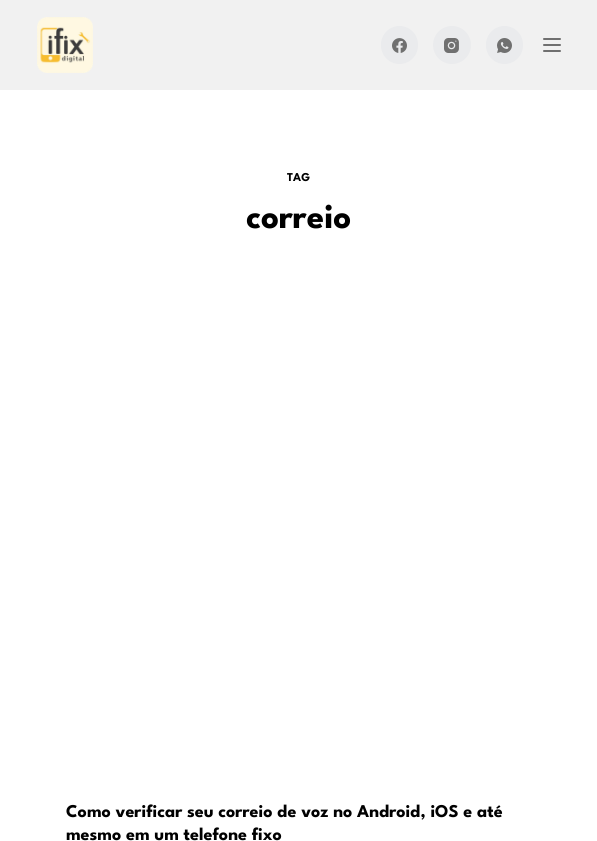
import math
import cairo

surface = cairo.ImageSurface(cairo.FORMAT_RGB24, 597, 841)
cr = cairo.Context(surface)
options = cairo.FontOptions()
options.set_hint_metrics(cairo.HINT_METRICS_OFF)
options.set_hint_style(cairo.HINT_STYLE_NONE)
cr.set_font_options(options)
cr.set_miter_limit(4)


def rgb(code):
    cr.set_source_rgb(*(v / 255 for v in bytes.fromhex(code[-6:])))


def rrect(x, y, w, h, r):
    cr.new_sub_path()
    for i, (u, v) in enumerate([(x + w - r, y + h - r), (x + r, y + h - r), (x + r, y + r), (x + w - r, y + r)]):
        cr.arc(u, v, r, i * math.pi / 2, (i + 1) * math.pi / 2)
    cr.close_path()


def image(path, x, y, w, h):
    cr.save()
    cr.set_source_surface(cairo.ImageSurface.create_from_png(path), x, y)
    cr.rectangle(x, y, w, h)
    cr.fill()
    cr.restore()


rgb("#ffffff")
cr.paint()
rgb("#f1f1f1")
cr.rectangle(0, 0, 597, 90)
cr.fill()
image("img/1.png", 37, 17, 56, 56)
rgb("#eaebed")
rrect(381, 26, 37, 38, 18.5)
cr.fill()
image("img/2.png", 392, 38, 15, 15)
cr.arc(452, 45, 19, 0, 2 * math.pi)
cr.fill()
image("img/3.png", 444, 38, 15, 15)
rrect(486, 26, 37, 38, 18.5)
cr.fill()
image("img/4.png", 497, 38, 15, 15)
rgb("#707070")
rrect(543, 38, 18, 2, 1)
cr.fill()
rrect(543, 44, 18, 2, 1)
cr.fill()
rrect(543, 50, 18, 2, 1)
cr.fill()
cr.select_font_face("League Spartan", cairo.FONT_SLANT_NORMAL, cairo.FONT_WEIGHT_BOLD)
cr.set_font_size(12)
rgb("#000000")
cr.move_to(287, 181)
cr.show_text("TAG")
cr.set_font_size(35)
cr.move_to(246, 228)
cr.show_text("correio")
cr.set_font_size(18)
cr.move_to(66, 817)
cr.show_text("Como verificar seu correio de voz no Android, iOS e até")
cr.move_to(66, 840)
cr.show_text("mesmo em um telefone fixo")
surface.write_to_png("page.png")
